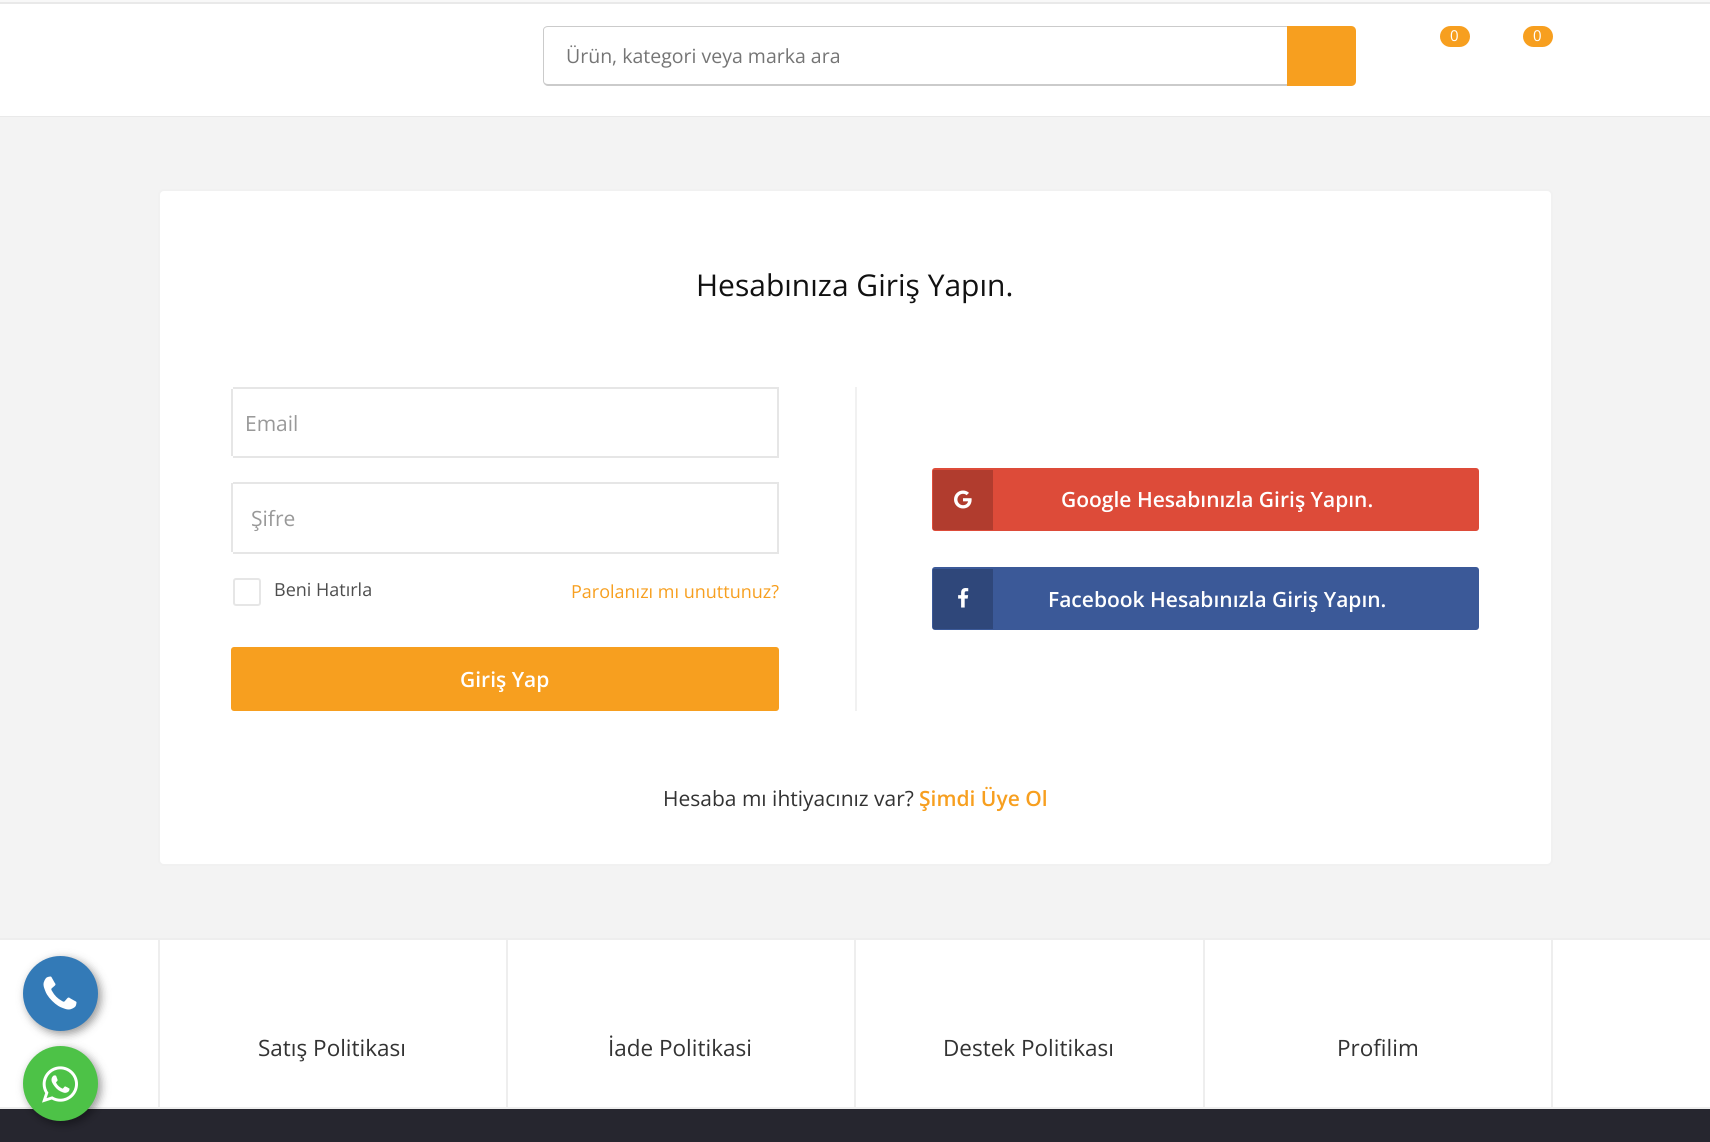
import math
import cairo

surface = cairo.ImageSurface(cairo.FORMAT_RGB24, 1710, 1142)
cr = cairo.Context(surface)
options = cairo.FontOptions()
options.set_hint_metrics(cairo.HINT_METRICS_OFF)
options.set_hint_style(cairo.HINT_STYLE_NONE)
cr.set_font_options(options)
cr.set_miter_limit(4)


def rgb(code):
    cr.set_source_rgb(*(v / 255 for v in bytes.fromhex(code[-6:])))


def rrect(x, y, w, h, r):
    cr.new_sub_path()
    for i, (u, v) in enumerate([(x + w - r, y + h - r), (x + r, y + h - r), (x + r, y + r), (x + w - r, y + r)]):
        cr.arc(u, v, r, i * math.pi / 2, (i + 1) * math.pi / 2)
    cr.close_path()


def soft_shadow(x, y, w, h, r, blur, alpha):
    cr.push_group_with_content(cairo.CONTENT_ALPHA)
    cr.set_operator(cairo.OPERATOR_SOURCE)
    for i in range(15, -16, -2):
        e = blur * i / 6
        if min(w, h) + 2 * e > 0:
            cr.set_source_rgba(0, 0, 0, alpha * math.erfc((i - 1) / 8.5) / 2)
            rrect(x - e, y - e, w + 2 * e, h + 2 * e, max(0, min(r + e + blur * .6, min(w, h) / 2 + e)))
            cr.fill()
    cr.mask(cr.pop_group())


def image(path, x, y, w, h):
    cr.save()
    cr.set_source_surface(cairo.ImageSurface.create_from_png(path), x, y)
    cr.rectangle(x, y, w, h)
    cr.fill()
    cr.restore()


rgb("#ffffff")
cr.paint()
rgb("#000000")
soft_shadow(26, 959, 75, 75, 37.5, 4.5, 0.4)
rgb("#337ab7")
cr.arc(60.5, 993.5, 37.5, 0, 2 * math.pi)
cr.fill()
image("img/1.png", 43, 976, 34, 34)
rgb("#f8f8f8")
cr.rectangle(0, 0, 1710, 2)
cr.fill()
rgb("#e9e9e9")
cr.rectangle(0, 2, 1710, 2)
cr.fill()
rgb("#f79f1f")
rrect(1440, 26, 30, 21, 10.5)
cr.fill()
rrect(1523, 26, 30, 21, 10.5)
cr.fill()
rgb("#cbcbcb")
cr.set_fill_rule(cairo.FILL_RULE_EVEN_ODD)
cr.new_path()
cr.move_to(548, 26)
cr.line_to(1287, 26)
cr.line_to(1287, 86)
cr.line_to(548, 86)
cr.curve_to(545, 86, 543, 83, 543, 81)
cr.line_to(543, 30)
cr.curve_to(543, 28, 545, 26, 548, 26)
cr.close_path()
cr.move_to(548, 27)
cr.line_to(1287, 27)
cr.line_to(1287, 84)
cr.line_to(548, 84)
cr.curve_to(546, 84, 544, 83, 544, 81)
cr.line_to(544, 30)
cr.curve_to(544, 28, 546, 27, 548, 27)
cr.close_path()
cr.fill()
rgb("#f79f1f")
cr.new_path()
cr.move_to(1287, 26)
cr.line_to(1351, 26)
cr.curve_to(1354, 26, 1356, 28, 1356, 31)
cr.line_to(1356, 81)
cr.curve_to(1356, 84, 1354, 86, 1351, 86)
cr.line_to(1287, 86)
cr.close_path()
cr.fill()
rgb("#e9e9e9")
cr.rectangle(0, 116, 1710, 1)
cr.fill()
rgb("#f3f3f3")
cr.rectangle(0, 117, 1710, 821)
cr.fill()
rgb("#ffffff")
rrect(159, 190, 1393, 675, 5)
cr.fill_preserve()
rgb("#f1f1f1")
cr.stroke()
for x, y, w, h, color in [
    (233, 387, 546, 2, "#e6e6e6"),
    (777, 387, 2, 71, "#e6e6e6"),
    (233, 456, 546, 2, "#e6e6e6"),
    (231, 389, 2, 67, "#e6e6e6"),
    (233, 482, 546, 2, "#e6e6e6"),
    (777, 482, 2, 72, "#e6e6e6"),
    (233, 552, 546, 2, "#e6e6e6"),
    (231, 483, 2, 69, "#e6e6e6"),
]:
    rgb(color)
    cr.rectangle(x, y, w, h)
    cr.fill()
rrect(234, 579, 26, 26, 2)
cr.stroke()
rgb("#f79f1f")
rrect(232, 648, 546, 62, 2)
cr.fill_preserve()
cr.stroke()
rgb("#f1f1f1")
cr.rectangle(855, 387, 2, 324)
cr.fill()
rgb("#dd4b39")
rrect(933, 469, 545, 61, 2)
cr.fill_preserve()
cr.stroke()
rgb("#b13c2e")
cr.rectangle(933, 470, 60, 60)
cr.fill()
image("img/2.png", 954, 490, 18, 19)
rgb("#3b5998")
rrect(933, 568, 545, 61, 2)
cr.fill_preserve()
cr.stroke()
rgb("#2f477a")
cr.rectangle(933, 569, 60, 60)
cr.fill()
image("img/3.png", 958, 588, 11, 20)
for x, y, w, h, color in [
    (0, 938, 1710, 2, "#eeeeee"),
    (0, 1107, 1710, 2, "#eeeeee"),
    (506, 939, 2, 168, "#eeeeee"),
    (158, 939, 2, 168, "#eeeeee"),
    (854, 939, 2, 168, "#eeeeee"),
    (1203, 939, 2, 168, "#eeeeee"),
    (1551, 939, 2, 168, "#eeeeee"),
    (0, 1109, 1710, 33, "#26262f"),
]:
    rgb(color)
    cr.rectangle(x, y, w, h)
    cr.fill()
rgb("#000000")
soft_shadow(26, 1049, 75, 75, 37.5, 4.5, 0.4)
rgb("#4dc247")
cr.arc(60.5, 1083.5, 37.5, 0, 2 * math.pi)
cr.fill()
image("img/4.png", 42, 1066, 36, 37)
cr.select_font_face("Open Sans")
cr.set_font_size(15)
rgb("#ffffff")
cr.move_to(1450, 41)
cr.show_text("0")
cr.move_to(1533, 41)
cr.show_text("0")
cr.set_font_size(19.5)
rgb("#757575")
cr.move_to(566, 63)
cr.show_text("Ürün, kategori veya marka ara")
cr.set_font_size(30)
rgb("#111111")
cr.move_to(696, 296)
cr.show_text("Hesabınıza Giriş Yapın.")
cr.set_font_size(21)
rgb("#999999")
cr.move_to(245, 431)
cr.show_text("Email")
cr.move_to(251, 526)
cr.show_text("Şifre")
cr.set_font_size(18)
rgb("#4d4d4d")
cr.move_to(274, 596)
cr.show_text("Beni Hatırla")
rgb("#f79f1f")
cr.move_to(571, 598)
cr.show_text("Parolanızı mı unuttunuz?")
cr.select_font_face("Open Sans SemiBold")
cr.set_font_size(21)
rgb("#ffffff")
for x, y, s in [
    (460, 687, "Giriş Yap"),
    (1061, 507, "Google Hesabınızla Giriş Yapın."),
    (1048, 607, "Facebook Hesabınızla Giriş Yapın."),
]:
    cr.move_to(x, y)
    cr.show_text(s)
cr.select_font_face("Open Sans")
rgb("#333333")
cr.move_to(663, 806)
cr.show_text("Hesaba mı ihtiyacınız var?")
cr.select_font_face("Open Sans SemiBold")
rgb("#f79f1f")
cr.move_to(919, 806)
cr.show_text("Şimdi Üye Ol")
cr.select_font_face("Open Sans")
cr.set_font_size(22.5)
rgb("#333333")
for x, y, s in [
    (258, 1056, "Satış Politikası"),
    (608, 1056, "İade Politikasi"),
    (943, 1056, "Destek Politikası"),
    (1337, 1056, "Profilim"),
]:
    cr.move_to(x, y)
    cr.show_text(s)
surface.write_to_png("page.png")
